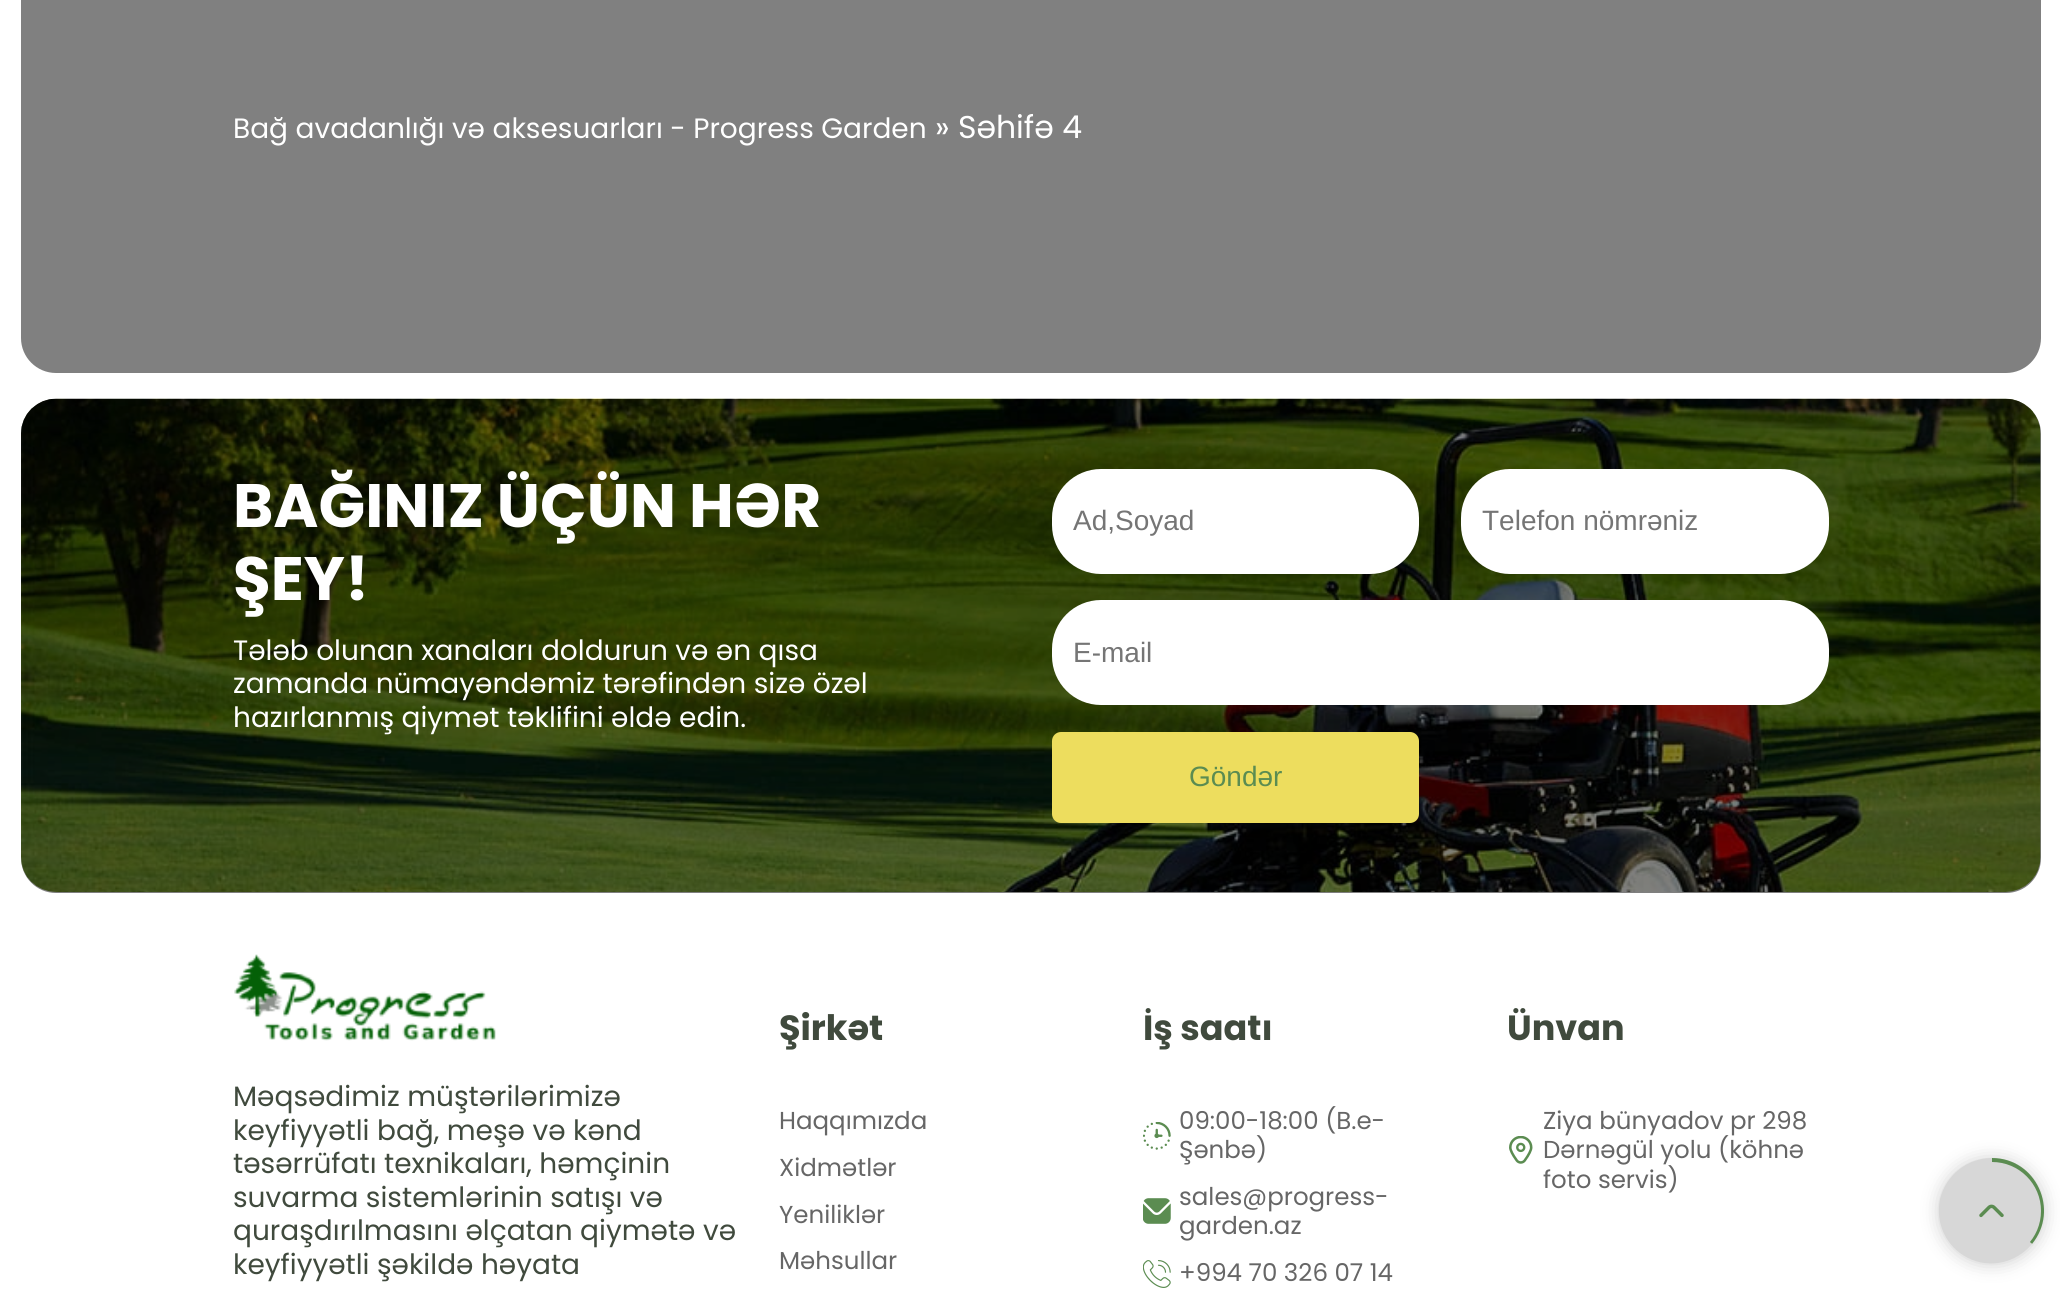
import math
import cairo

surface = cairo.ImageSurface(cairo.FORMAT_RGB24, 2060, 1297)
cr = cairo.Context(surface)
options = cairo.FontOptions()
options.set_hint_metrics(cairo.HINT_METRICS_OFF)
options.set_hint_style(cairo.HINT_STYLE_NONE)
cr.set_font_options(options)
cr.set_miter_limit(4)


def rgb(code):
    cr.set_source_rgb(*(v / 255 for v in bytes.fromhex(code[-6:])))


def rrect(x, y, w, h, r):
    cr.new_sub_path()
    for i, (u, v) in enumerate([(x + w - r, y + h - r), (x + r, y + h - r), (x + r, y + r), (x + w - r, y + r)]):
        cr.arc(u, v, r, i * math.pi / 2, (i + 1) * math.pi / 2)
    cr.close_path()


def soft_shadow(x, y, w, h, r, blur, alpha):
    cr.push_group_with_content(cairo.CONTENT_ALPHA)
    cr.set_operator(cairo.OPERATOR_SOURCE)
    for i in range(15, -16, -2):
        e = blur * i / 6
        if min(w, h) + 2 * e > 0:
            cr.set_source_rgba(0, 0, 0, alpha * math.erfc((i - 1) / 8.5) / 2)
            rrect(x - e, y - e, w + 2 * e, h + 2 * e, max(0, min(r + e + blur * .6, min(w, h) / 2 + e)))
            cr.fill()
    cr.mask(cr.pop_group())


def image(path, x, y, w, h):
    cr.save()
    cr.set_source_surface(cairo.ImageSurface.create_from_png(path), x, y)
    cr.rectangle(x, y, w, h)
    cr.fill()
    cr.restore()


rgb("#ffffff")
cr.paint()
rgb("#808080")
rrect(21, -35, 2020, 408, 35)
cr.fill()
image("img/1.png", 21, 398, 2020, 494)
cr.set_source_rgba(0, 0, 0, 0.5)
rrect(21, 399, 2020, 494, 35)
cr.fill()
rgb("#ffffff")
rrect(1052, 469, 367, 105, 49)
cr.fill()
rrect(1461, 469, 368, 105, 49)
cr.fill()
rrect(1052, 600, 777, 105, 49)
cr.fill()
rgb("#eddd5e")
rrect(1052, 732, 367, 91, 9)
cr.fill()
image("img/2.png", 234, 954, 262, 87)
image("img/3.png", 1143, 1122, 28, 28)
image("img/4.png", 1143, 1198, 28, 26)
image("img/5.png", 1143, 1260, 28, 28)
image("img/6.png", 1509, 1136, 24, 28)
rgb("#000000")
soft_shadow(1939, 1159, 105, 105, 52.5, 9, 0.2)
rgb("#5b8c51")
cr.new_path()
cr.move_to(1992, 1211)
cr.line_to(1992, 1158)
cr.curve_to(2036, 1158, 2060, 1210, 2032, 1244)
cr.close_path()
cr.fill()
rgb("#d7d7d7")
cr.new_path()
cr.move_to(1992, 1211)
cr.line_to(2032, 1244)
cr.curve_to(2016, 1263, 1990, 1269, 1968, 1258)
cr.curve_to(1946, 1247, 1935, 1223, 1940, 1199)
cr.curve_to(1946, 1175, 1967, 1158, 1992, 1158)
cr.close_path()
cr.fill()
cr.arc(1992, 1211, 49, 0, 2 * math.pi)
cr.fill()
image("img/7.png", 1979, 1204, 25, 14)
cr.select_font_face("Poppins")
cr.set_font_size(28)
rgb("#ffffff")
cr.move_to(233, 138)
cr.show_text("Bağ avadanlığı və aksesuarları - Progress Garden")
cr.set_font_size(31.5)
cr.move_to(935, 138)
cr.show_text("» Səhifə 4")
cr.select_font_face("Poppins", cairo.FONT_SLANT_NORMAL, cairo.FONT_WEIGHT_BOLD)
cr.set_font_size(61.25)
cr.move_to(233, 527)
cr.show_text("BAĞINIZ ÜÇÜN HƏR")
cr.move_to(233, 600)
cr.show_text("ŞEY!")
cr.select_font_face("Poppins")
cr.set_font_size(28)
for x, y, s in [
    (233, 660, "Tələb olunan xanaları doldurun və ən qısa"),
    (233, 693, "zamanda nümayəndəmiz tərəfindən sizə özəl"),
    (233, 727, "hazırlanmış qiymət təklifini əldə edin."),
]:
    cr.move_to(x, y)
    cr.show_text(s)
cr.select_font_face("Liberation Sans")
rgb("#757575")
for x, y, s in [
    (1073, 530, "Ad,Soyad"),
    (1482, 530, "Telefon nömrəniz"),
    (1073, 662, "E-mail"),
]:
    cr.move_to(x, y)
    cr.show_text(s)
rgb("#5b8c51")
cr.move_to(1189, 786)
cr.show_text("Göndər")
cr.select_font_face("Poppins")
rgb("#404a3d")
for x, y, s in [
    (233, 1106, "Məqsədimiz müştərilərimizə"),
    (233, 1140, "keyfiyyətli bağ, meşə və kənd"),
    (233, 1173, "təsərrüfatı texnikaları, həmçinin"),
    (233, 1207, "suvarma sistemlərinin satışı və"),
    (233, 1240, "quraşdırılmasını əlçatan qiymətə və"),
    (233, 1274, "keyfiyyətli şəkildə həyata"),
]:
    cr.move_to(x, y)
    cr.show_text(s)
cr.select_font_face("Poppins", cairo.FONT_SLANT_NORMAL, cairo.FONT_WEIGHT_BOLD)
cr.set_font_size(35)
cr.move_to(779, 1040)
cr.show_text("Şirkət")
cr.select_font_face("Poppins")
cr.set_font_size(24.5)
rgb("#666666")
for x, y, s in [
    (779, 1129, "Haqqımızda"),
    (779, 1176, "Xidmətlər"),
    (779, 1223, "Yeniliklər"),
    (779, 1269, "Məhsullar"),
]:
    cr.move_to(x, y)
    cr.show_text(s)
cr.select_font_face("Poppins", cairo.FONT_SLANT_NORMAL, cairo.FONT_WEIGHT_BOLD)
cr.set_font_size(35)
rgb("#404a3d")
cr.move_to(1143, 1040)
cr.show_text("İş saatı")
cr.select_font_face("Poppins")
cr.set_font_size(24.5)
rgb("#666666")
for x, y, s in [
    (1179, 1129, "09:00-18:00 (B.e-"),
    (1179, 1158, "Şənbə)"),
    (1179, 1205, "sales@progress-"),
    (1179, 1234, "garden.az"),
    (1179, 1281, "+994 70 326 07 14"),
]:
    cr.move_to(x, y)
    cr.show_text(s)
cr.select_font_face("Poppins", cairo.FONT_SLANT_NORMAL, cairo.FONT_WEIGHT_BOLD)
cr.set_font_size(35)
rgb("#404a3d")
cr.move_to(1507, 1040)
cr.show_text("Ünvan")
cr.select_font_face("Poppins")
cr.set_font_size(24.5)
rgb("#666666")
for x, y, s in [
    (1543, 1129, "Ziya bünyadov pr 298"),
    (1543, 1158, "Dərnəgül yolu (köhnə"),
    (1543, 1188, "foto servis)"),
]:
    cr.move_to(x, y)
    cr.show_text(s)
surface.write_to_png("page.png")
